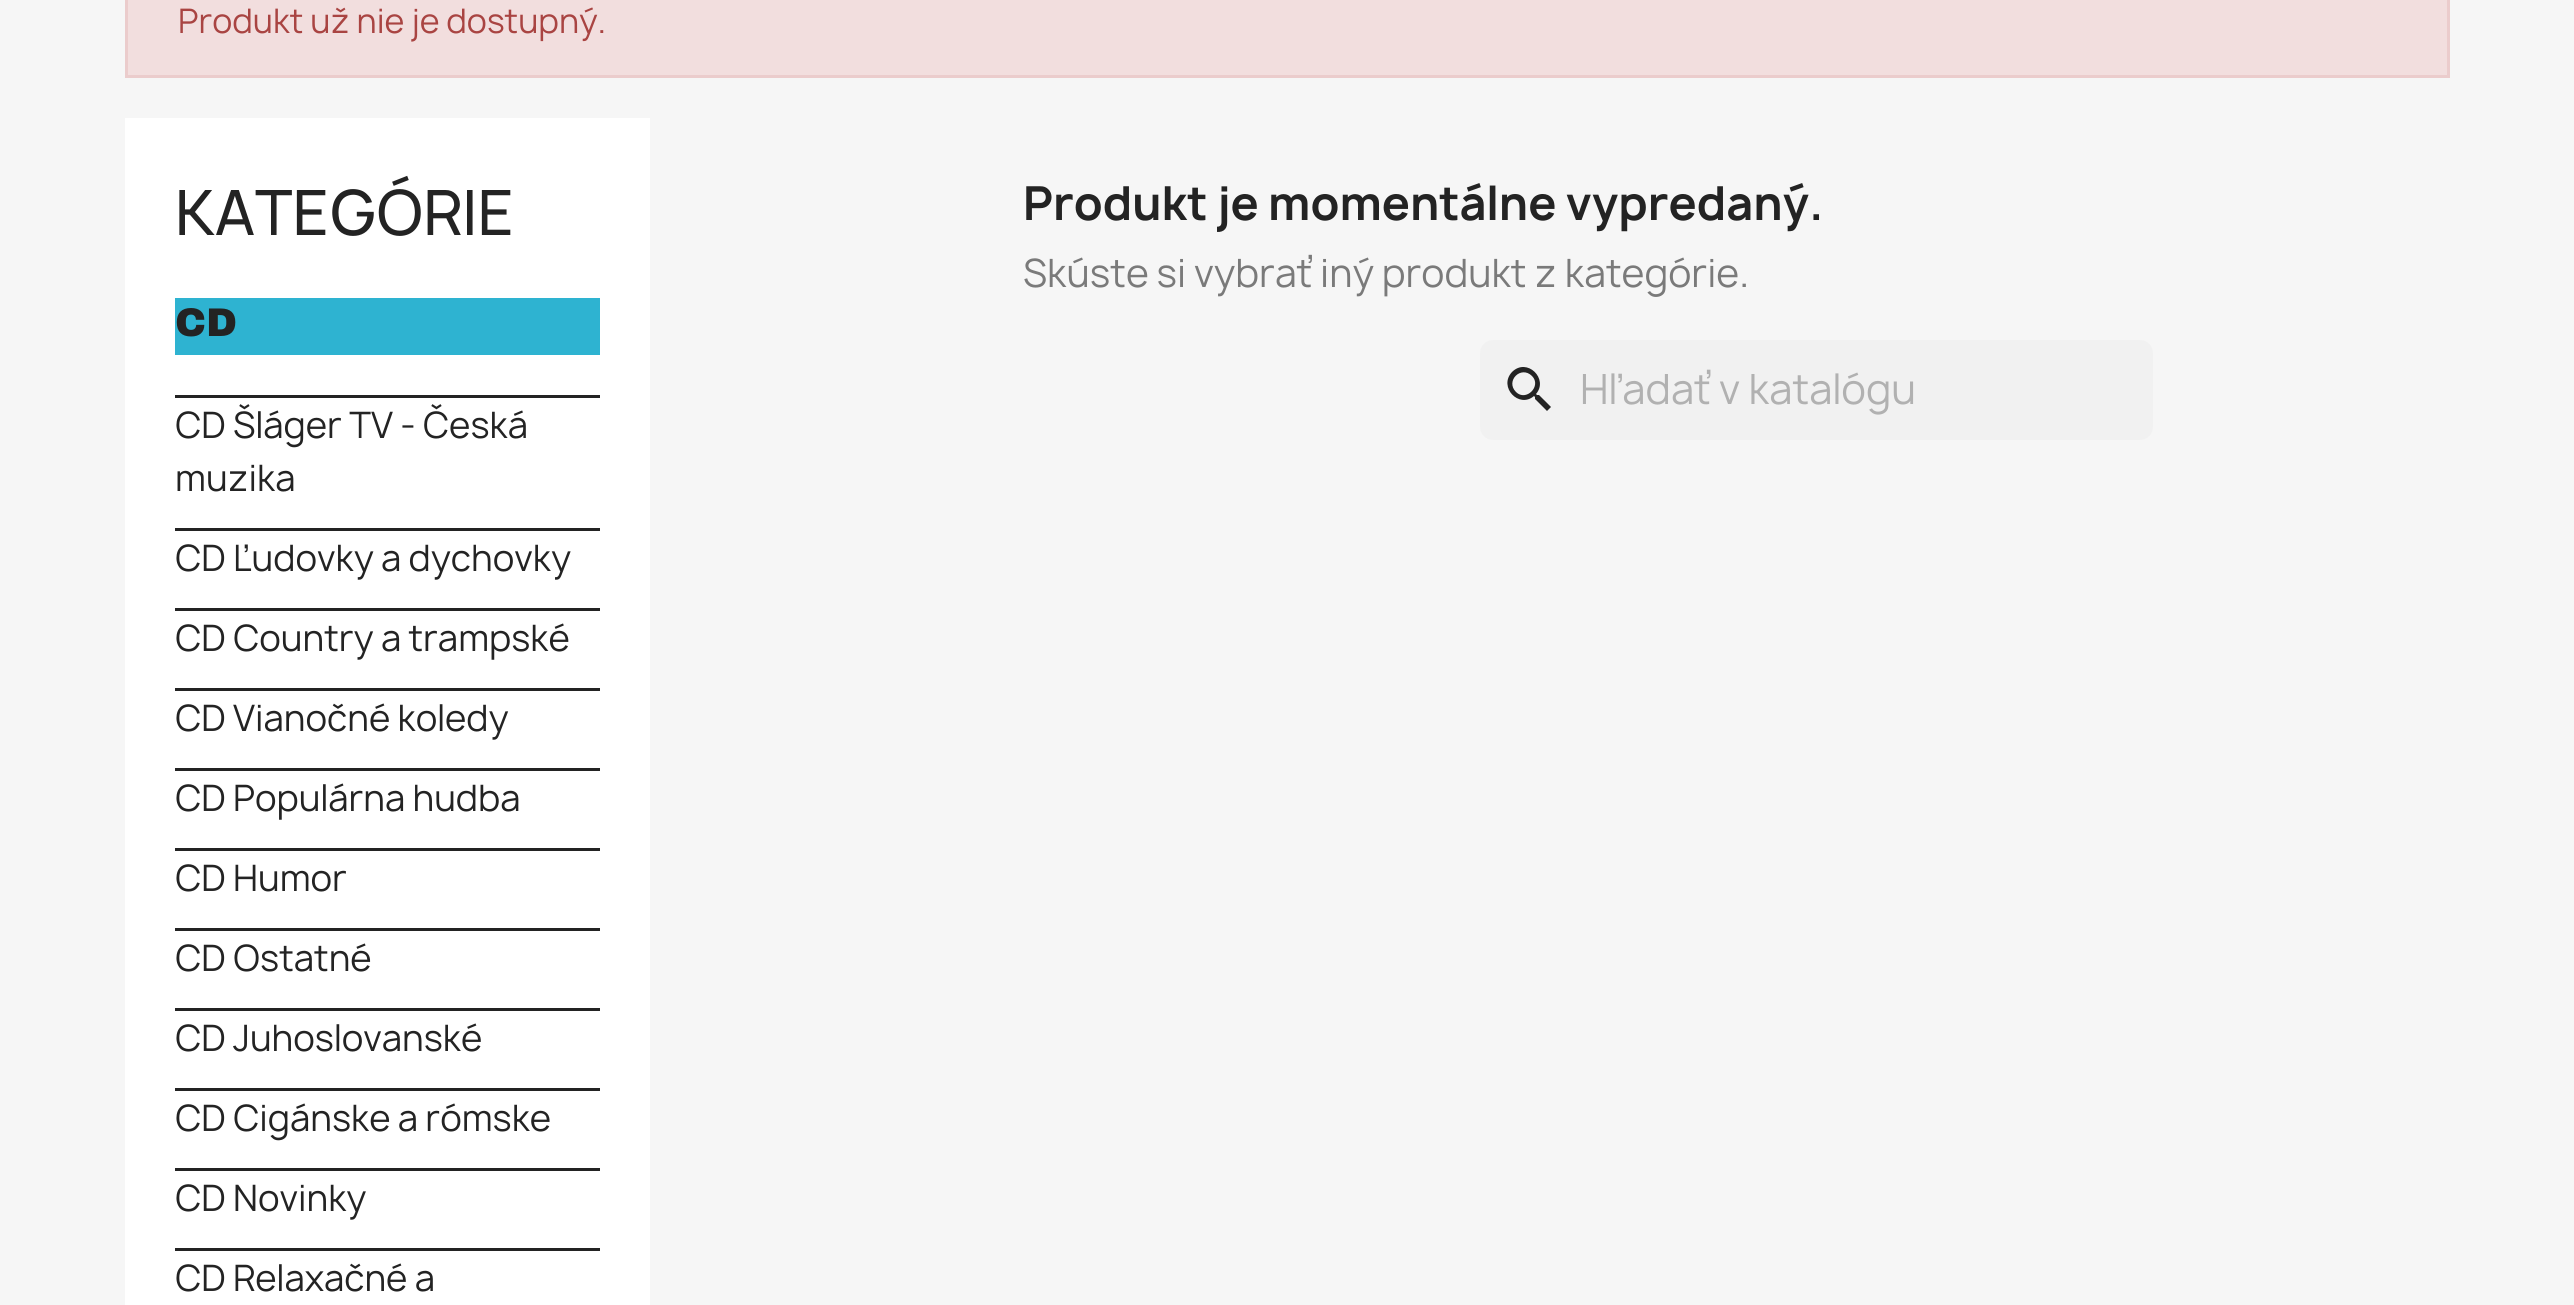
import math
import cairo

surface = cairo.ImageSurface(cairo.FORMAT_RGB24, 2574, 1305)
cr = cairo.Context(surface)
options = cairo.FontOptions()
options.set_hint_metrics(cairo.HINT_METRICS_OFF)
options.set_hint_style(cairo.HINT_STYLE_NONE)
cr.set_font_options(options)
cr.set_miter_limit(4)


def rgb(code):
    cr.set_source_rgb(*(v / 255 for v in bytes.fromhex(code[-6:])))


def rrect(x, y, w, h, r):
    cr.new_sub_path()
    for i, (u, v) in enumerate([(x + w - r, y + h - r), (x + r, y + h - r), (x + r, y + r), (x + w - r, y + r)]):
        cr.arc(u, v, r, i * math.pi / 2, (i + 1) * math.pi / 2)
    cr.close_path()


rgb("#f6f6f6")
cr.paint()
rgb("#f2dede")
cr.rectangle(126.5, -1.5, 2322, 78)
cr.fill_preserve()
rgb("#ebcccc")
cr.set_line_width(3)
cr.stroke()
for x, y, w, h, color in [
    (125, 118, 525, 1187, "#ffffff"),
    (175, 298, 425, 57, "#2eb3d1"),
    (175, 395, 425, 3, "#232323"),
    (175, 528, 425, 3, "#232323"),
    (175, 608, 425, 3, "#232323"),
    (175, 688, 425, 3, "#232323"),
    (175, 768, 425, 3, "#232323"),
    (175, 848, 425, 3, "#232323"),
    (175, 928, 425, 3, "#232323"),
    (175, 1008, 425, 3, "#232323"),
    (175, 1088, 425, 3, "#232323"),
    (175, 1168, 425, 3, "#232323"),
    (175, 1248, 425, 3, "#232323"),
]:
    rgb(color)
    cr.rectangle(x, y, w, h)
    cr.fill()
rgb("#f1f1f1")
rrect(1480, 340, 673, 100, 13)
cr.fill()
rgb("#232323")
cr.new_path()
cr.move_to(1516, 392)
cr.curve_to(1526, 402, 1542, 386, 1532, 376)
cr.curve_to(1521, 365, 1505, 381, 1516, 392)
cr.close_path()
cr.move_to(1539, 395)
cr.line_to(1551, 407)
cr.line_to(1547, 411)
cr.line_to(1535, 399)
cr.line_to(1535, 397)
cr.line_to(1534, 396)
cr.curve_to(1519, 409, 1498, 387, 1512, 372)
cr.curve_to(1527, 357, 1549, 379, 1536, 394)
cr.line_to(1537, 395)
cr.close_path()
cr.fill()
cr.select_font_face("Manrope")
cr.set_font_size(32.5)
rgb("#a94442")
cr.move_to(178, 33)
cr.show_text("Produkt už nie je dostupný.")
cr.select_font_face("Manrope Medium")
cr.set_font_size(60)
rgb("#232323")
cr.move_to(175, 235)
cr.show_text("KATEGÓRIE")
cr.select_font_face("Archivo Black Black")
cr.set_font_size(40)
cr.move_to(175, 336)
cr.show_text("CD")
cr.select_font_face("Manrope")
cr.set_font_size(35)
for x, y, s in [
    (175, 438, "CD Šláger TV - Česká"),
    (175, 491, "muzika"),
    (175, 571, "CD Ľudovky a dychovky"),
    (175, 651, "CD Country a trampské"),
    (175, 731, "CD Vianočné koledy"),
    (175, 811, "CD Populárna hudba"),
    (175, 891, "CD Humor"),
    (175, 971, "CD Ostatné"),
    (175, 1051, "CD Juhoslovanské"),
    (175, 1131, "CD Cigánske a rómske"),
    (175, 1211, "CD Novinky"),
    (175, 1291, "CD Relaxačné a"),
]:
    cr.move_to(x, y)
    cr.show_text(s)
cr.select_font_face("Manrope", cairo.FONT_SLANT_NORMAL, cairo.FONT_WEIGHT_BOLD)
cr.set_font_size(45)
cr.move_to(1023, 220)
cr.show_text("Produkt je momentálne vypredaný.")
cr.select_font_face("Manrope")
cr.set_font_size(37.5)
rgb("#7a7a7a")
cr.move_to(1023, 287)
cr.show_text("Skúste si vybrať iný produkt z kategórie.")
cr.set_font_size(40)
rgb("#b1b1b1")
cr.move_to(1580, 404)
cr.show_text("Hľadať v katalógu")
surface.write_to_png("page.png")
